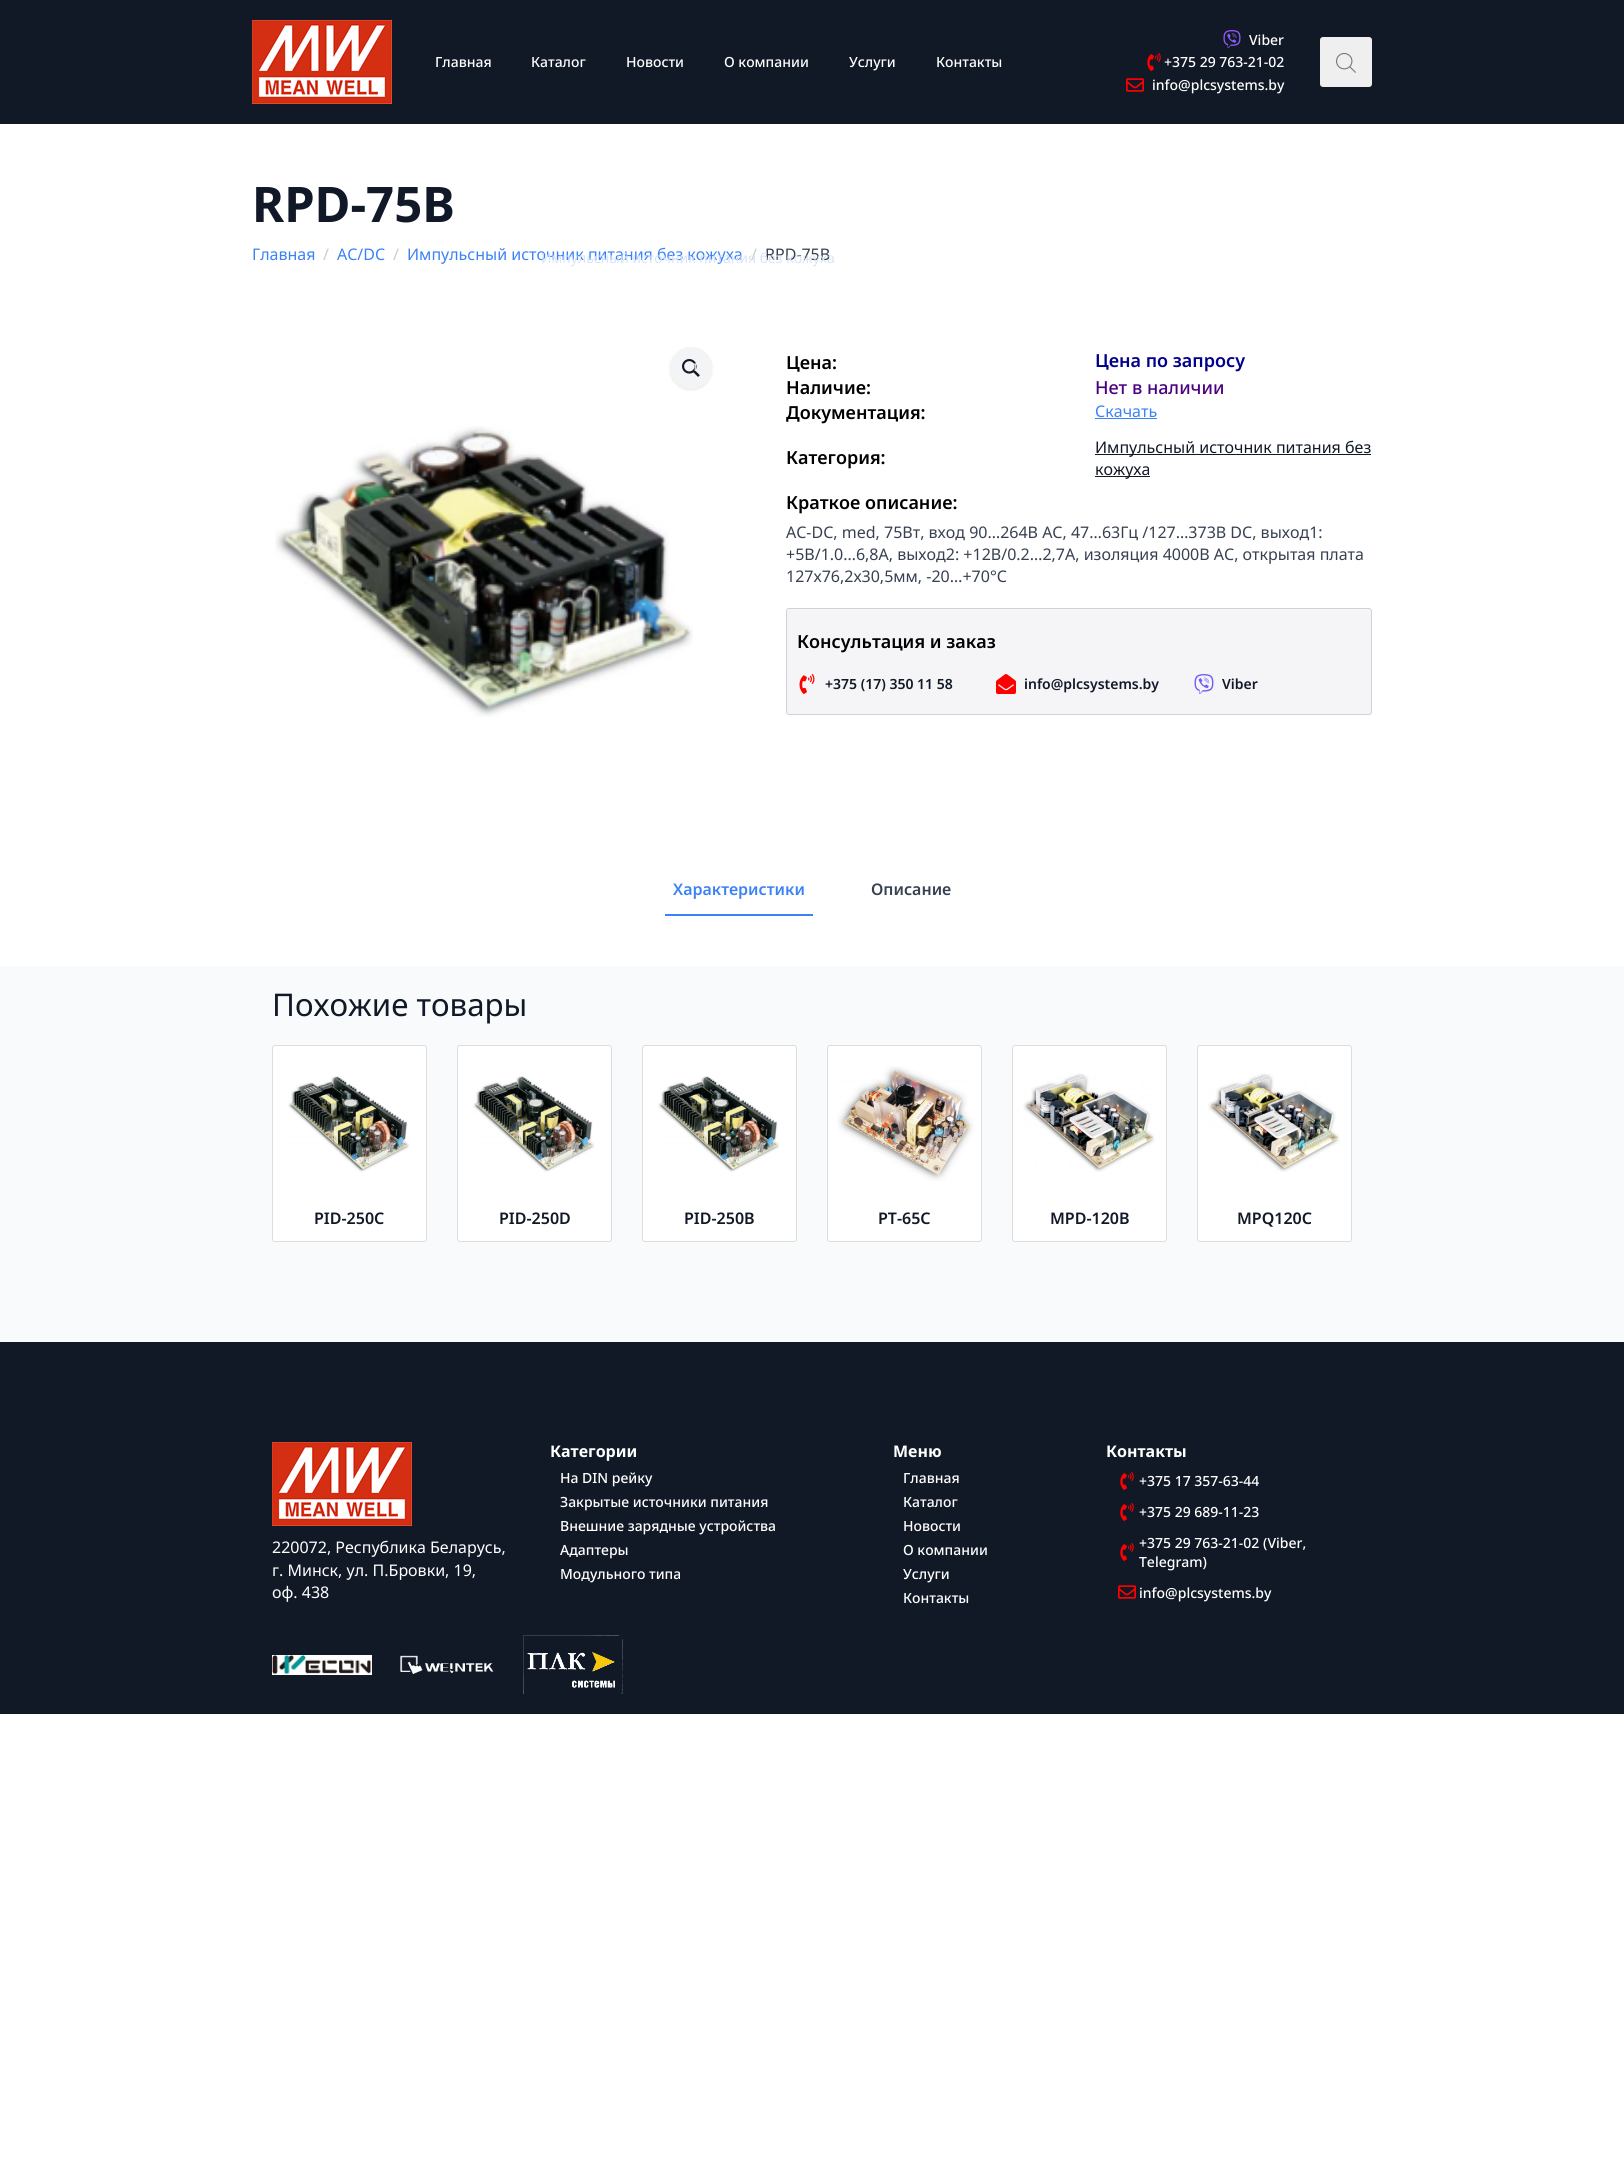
import math
import cairo

surface = cairo.ImageSurface(cairo.FORMAT_RGB24, 1624, 2172)
cr = cairo.Context(surface)
options = cairo.FontOptions()
options.set_hint_metrics(cairo.HINT_METRICS_OFF)
options.set_hint_style(cairo.HINT_STYLE_NONE)
cr.set_font_options(options)
cr.set_miter_limit(4)


def rgb(code):
    cr.set_source_rgb(*(v / 255 for v in bytes.fromhex(code[-6:])))


def rrect(x, y, w, h, r):
    cr.new_sub_path()
    for i, (u, v) in enumerate([(x + w - r, y + h - r), (x + r, y + h - r), (x + r, y + r), (x + w - r, y + r)]):
        cr.arc(u, v, r, i * math.pi / 2, (i + 1) * math.pi / 2)
    cr.close_path()


def soft_shadow(x, y, w, h, r, blur, alpha):
    cr.push_group_with_content(cairo.CONTENT_ALPHA)
    cr.set_operator(cairo.OPERATOR_SOURCE)
    for i in range(15, -16, -2):
        e = blur * i / 6
        if min(w, h) + 2 * e > 0:
            cr.set_source_rgba(0, 0, 0, alpha * math.erfc((i - 1) / 8.5) / 2)
            rrect(x - e, y - e, w + 2 * e, h + 2 * e, max(0, min(r + e + blur * .6, min(w, h) / 2 + e)))
            cr.fill()
    cr.mask(cr.pop_group())


def image(path, x, y, w, h):
    cr.save()
    cr.set_source_surface(cairo.ImageSurface.create_from_png(path), x, y)
    cr.rectangle(x, y, w, h)
    cr.fill()
    cr.restore()


rgb("#ffffff")
cr.paint()
rgb("#111826")
cr.rectangle(0, 0, 1624, 124)
cr.fill()
image("img/1.png", 252, 20, 140, 84)
image("img/2.png", 1223, 30, 18, 18)
image("img/3.png", 1147, 53, 14, 18)
image("img/4.png", 1126, 78, 18, 14)
rgb("#efefef")
rrect(1320, 37, 52, 50, 3)
cr.fill()
image("img/5.png", 1336, 53, 20, 20)
rgb("#f9fafb")
cr.rectangle(0, 966, 1624, 376)
cr.fill()
rgb("#000000")
soft_shadow(670, 348, 42, 42, 21, 1, 0.05)
soft_shadow(670, 348, 42, 42, 21, 1.5, 0.05)
rgb("#f3f4f6")
cr.arc(691, 368, 21, 0, 2 * math.pi)
cr.fill()
image("img/6.png", 682, 359, 18, 18)
image("img/7.png", 275, 426, 418, 291)
for x, y, w, h, color in [
    (1095, 418, 62, 1, "#3b82f6"),
    (1095, 454, 276, 1, "#111826"),
    (1095, 476, 55, 1, "#111826"),
]:
    rgb(color)
    cr.rectangle(x, y, w, h)
    cr.fill()
rgb("#f5f5f8")
rrect(786.5, 608.5, 585, 106, 2.5)
cr.fill_preserve()
rgb("#d0d0dd")
cr.set_line_width(1)
cr.stroke()
image("img/8.png", 799, 674, 16, 20)
image("img/9.png", 996, 674, 20, 20)
image("img/10.png", 1194, 674, 20, 20)
rgb("#3b82f6")
cr.rectangle(665, 914, 148, 2)
cr.fill()
rgb("#ffffff")
rrect(272.5, 1045.5, 154, 196, 2.5)
cr.fill_preserve()
rgb("#dddddd")
cr.stroke()
image("img/11.png", 288, 1075, 122, 97)
rgb("#ffffff")
rrect(457.5, 1045.5, 154, 196, 2.5)
cr.fill_preserve()
rgb("#dddddd")
cr.stroke()
image("img/12.png", 473, 1075, 122, 97)
rgb("#ffffff")
rrect(642.5, 1045.5, 154, 196, 2.5)
cr.fill_preserve()
rgb("#dddddd")
cr.stroke()
image("img/13.png", 658, 1075, 122, 97)
rgb("#ffffff")
rrect(827.5, 1045.5, 154, 196, 2.5)
cr.fill_preserve()
rgb("#dddddd")
cr.stroke()
image("img/14.png", 837, 1066, 137, 115)
rgb("#ffffff")
rrect(1012.5, 1045.5, 154, 196, 2.5)
cr.fill_preserve()
rgb("#dddddd")
cr.stroke()
image("img/15.png", 1023, 1073, 132, 99)
rgb("#ffffff")
rrect(1197.5, 1045.5, 154, 196, 2.5)
cr.fill_preserve()
rgb("#dddddd")
cr.stroke()
image("img/16.png", 1208, 1073, 132, 99)
rgb("#111826")
cr.rectangle(0, 1342, 1624, 372)
cr.fill()
image("img/1.png", 272, 1442, 140, 84)
image("img/3.png", 1120, 1472, 14, 18)
image("img/3.png", 1120, 1503, 14, 18)
image("img/3.png", 1120, 1543, 14, 18)
image("img/4.png", 1118, 1585, 18, 14)
image("img/17.png", 272, 1655, 100, 20)
image("img/18.png", 400, 1655, 94, 19)
image("img/19.png", 523, 1635, 100, 59)
cr.select_font_face("Noto Sans Medium")
cr.set_font_size(14)
rgb("#ffffff")
for x, y, s in [
    (435, 67, "Главная"),
    (724, 67, "О компании"),
    (531, 67, "Каталог"),
]:
    cr.move_to(x, y)
    cr.show_text(s)
cr.select_font_face("Noto Sans")
rgb("#f7f7f8")
cr.move_to(692, 371)
cr.show_text("т")
cr.select_font_face("Noto Sans Medium")
rgb("#ffffff")
for x, y, s in [
    (626, 67, "Новости"),
    (849, 67, "Услуги"),
    (936, 67, "Контакты"),
    (1249, 45, "Viber"),
    (1164, 67, "+375 29 763-21-02"),
    (1152, 90, "info@plcsystems.by"),
]:
    cr.move_to(x, y)
    cr.show_text(s)
cr.select_font_face("Noto Sans", cairo.FONT_SLANT_NORMAL, cairo.FONT_WEIGHT_BOLD)
cr.set_font_size(49)
rgb("#111827")
cr.move_to(252, 222)
cr.show_text("RPD-75B")
cr.select_font_face("Noto Sans")
cr.set_font_size(16)
rgb("#3b82f6")
cr.move_to(252, 260)
cr.show_text("Главная")
rgb("#cccccc")
cr.move_to(323, 260)
cr.show_text("/")
rgb("#3b82f6")
cr.move_to(337, 260)
cr.show_text("AC/DC")
rgb("#cccccc")
cr.move_to(393, 260)
cr.show_text("/")
rgb("#3b82f6")
cr.move_to(407, 260)
cr.show_text("Импульсный источник питания без кожуха")
rgb("#cccccc")
cr.move_to(751, 260)
cr.show_text("/")
rgb("#374151")
cr.move_to(765, 260)
cr.show_text("RPD-75B")
cr.set_font_size(14)
rgb("#d9e4f7")
cr.move_to(541, 263)
cr.show_text("Импульсный источник питания без кожуха")
cr.select_font_face("Noto Sans SemiBold")
cr.set_font_size(18)
rgb("#000000")
cr.move_to(786, 369)
cr.show_text("Цена:")
rgb("#00008b")
cr.move_to(1095, 367)
cr.show_text("Цена по запросу")
rgb("#000000")
cr.move_to(786, 394)
cr.show_text("Наличие:")
cr.select_font_face("Noto Sans Medium")
rgb("#4b0082")
cr.move_to(1095, 394)
cr.show_text("Нет в наличии")
cr.select_font_face("Noto Sans SemiBold")
rgb("#000000")
cr.move_to(786, 419)
cr.show_text("Документация:")
cr.select_font_face("Noto Sans")
cr.set_font_size(16)
rgb("#3b82f6")
cr.move_to(1095, 417)
cr.show_text("Скачать")
cr.select_font_face("Noto Sans SemiBold")
cr.set_font_size(18)
rgb("#000000")
cr.move_to(786, 464)
cr.show_text("Категория:")
cr.select_font_face("Noto Sans")
cr.set_font_size(16)
rgb("#111827")
cr.move_to(1095, 453)
cr.show_text("Импульсный источник питания без")
cr.move_to(1095, 475)
cr.show_text("кожуха")
cr.select_font_face("Noto Sans SemiBold")
cr.set_font_size(18)
rgb("#000000")
cr.move_to(786, 509)
cr.show_text("Краткое описание:")
cr.select_font_face("Noto Sans")
cr.set_font_size(16)
rgb("#374151")
for x, y, s in [
    (786, 538, "AC-DC, med, 75Вт, вход 90…264В AC, 47…63Гц /127…373В DC, выход1:"),
    (786, 560, "+5В/1.0…6,8A, выход2: +12В/0.2…2,7A, изоляция 4000В AC, открытая плата"),
    (786, 582, "127х76,2х30,5мм, -20…+70°С"),
]:
    cr.move_to(x, y)
    cr.show_text(s)
cr.select_font_face("Noto Sans SemiBold")
cr.set_font_size(18)
rgb("#000000")
cr.move_to(797, 648)
cr.show_text("Консультация и заказ")
cr.set_font_size(14)
rgb("#111827")
for x, y, s in [
    (825, 689, "+375 (17) 350 11 58"),
    (1024, 689, "info@plcsystems.by"),
    (1222, 689, "Viber"),
]:
    cr.move_to(x, y)
    cr.show_text(s)
cr.set_font_size(16)
rgb("#3b82f6")
cr.move_to(673, 895)
cr.show_text("Характеристики")
rgb("#374151")
cr.move_to(871, 895)
cr.show_text("Описание")
cr.select_font_face("Noto Sans")
cr.set_font_size(31.25)
rgb("#111827")
cr.move_to(272, 1016)
cr.show_text("Похожие товары")
cr.select_font_face("Noto Sans SemiBold")
cr.set_font_size(16)
for x, y, s in [
    (314, 1224, "PID-250C"),
    (499, 1224, "PID-250D"),
    (684, 1224, "PID-250B"),
    (878, 1224, "PT-65C"),
    (1050, 1224, "MPD-120B"),
    (1237, 1224, "MPQ120C"),
]:
    cr.move_to(x, y)
    cr.show_text(s)
cr.select_font_face("Noto Sans")
rgb("#ffffff")
for x, y, s in [
    (272, 1553, "220072, Республика Беларусь,"),
    (272, 1576, "г. Минск, ул. П.Бровки, 19,"),
    (272, 1598, "оф. 438"),
]:
    cr.move_to(x, y)
    cr.show_text(s)
cr.select_font_face("Noto Sans", cairo.FONT_SLANT_NORMAL, cairo.FONT_WEIGHT_BOLD)
cr.move_to(550, 1457)
cr.show_text("Категории")
cr.select_font_face("Noto Sans Medium")
cr.set_font_size(14)
for x, y, s in [
    (560, 1483, "На DIN рейку"),
    (560, 1507, "Закрытые источники питания"),
    (560, 1531, "Внешние зарядные устройства"),
    (560, 1555, "Адаптеры"),
    (560, 1579, "Модульного типа"),
]:
    cr.move_to(x, y)
    cr.show_text(s)
cr.select_font_face("Noto Sans", cairo.FONT_SLANT_NORMAL, cairo.FONT_WEIGHT_BOLD)
cr.set_font_size(16)
cr.move_to(893, 1457)
cr.show_text("Меню")
cr.select_font_face("Noto Sans Medium")
cr.set_font_size(14)
for x, y, s in [
    (903, 1483, "Главная"),
    (903, 1507, "Каталог"),
    (903, 1531, "Новости"),
    (903, 1555, "О компании"),
    (903, 1579, "Услуги"),
    (903, 1603, "Контакты"),
]:
    cr.move_to(x, y)
    cr.show_text(s)
cr.select_font_face("Noto Sans", cairo.FONT_SLANT_NORMAL, cairo.FONT_WEIGHT_BOLD)
cr.set_font_size(16)
cr.move_to(1106, 1457)
cr.show_text("Контакты")
cr.select_font_face("Noto Sans Medium")
cr.set_font_size(14)
for x, y, s in [
    (1139, 1486, "+375 17 357-63-44"),
    (1139, 1517, "+375 29 689-11-23"),
    (1139, 1548, "+375 29 763-21-02 (Viber,"),
    (1139, 1567, "Telegram)"),
    (1139, 1598, "info@plcsystems.by"),
]:
    cr.move_to(x, y)
    cr.show_text(s)
surface.write_to_png("page.png")
